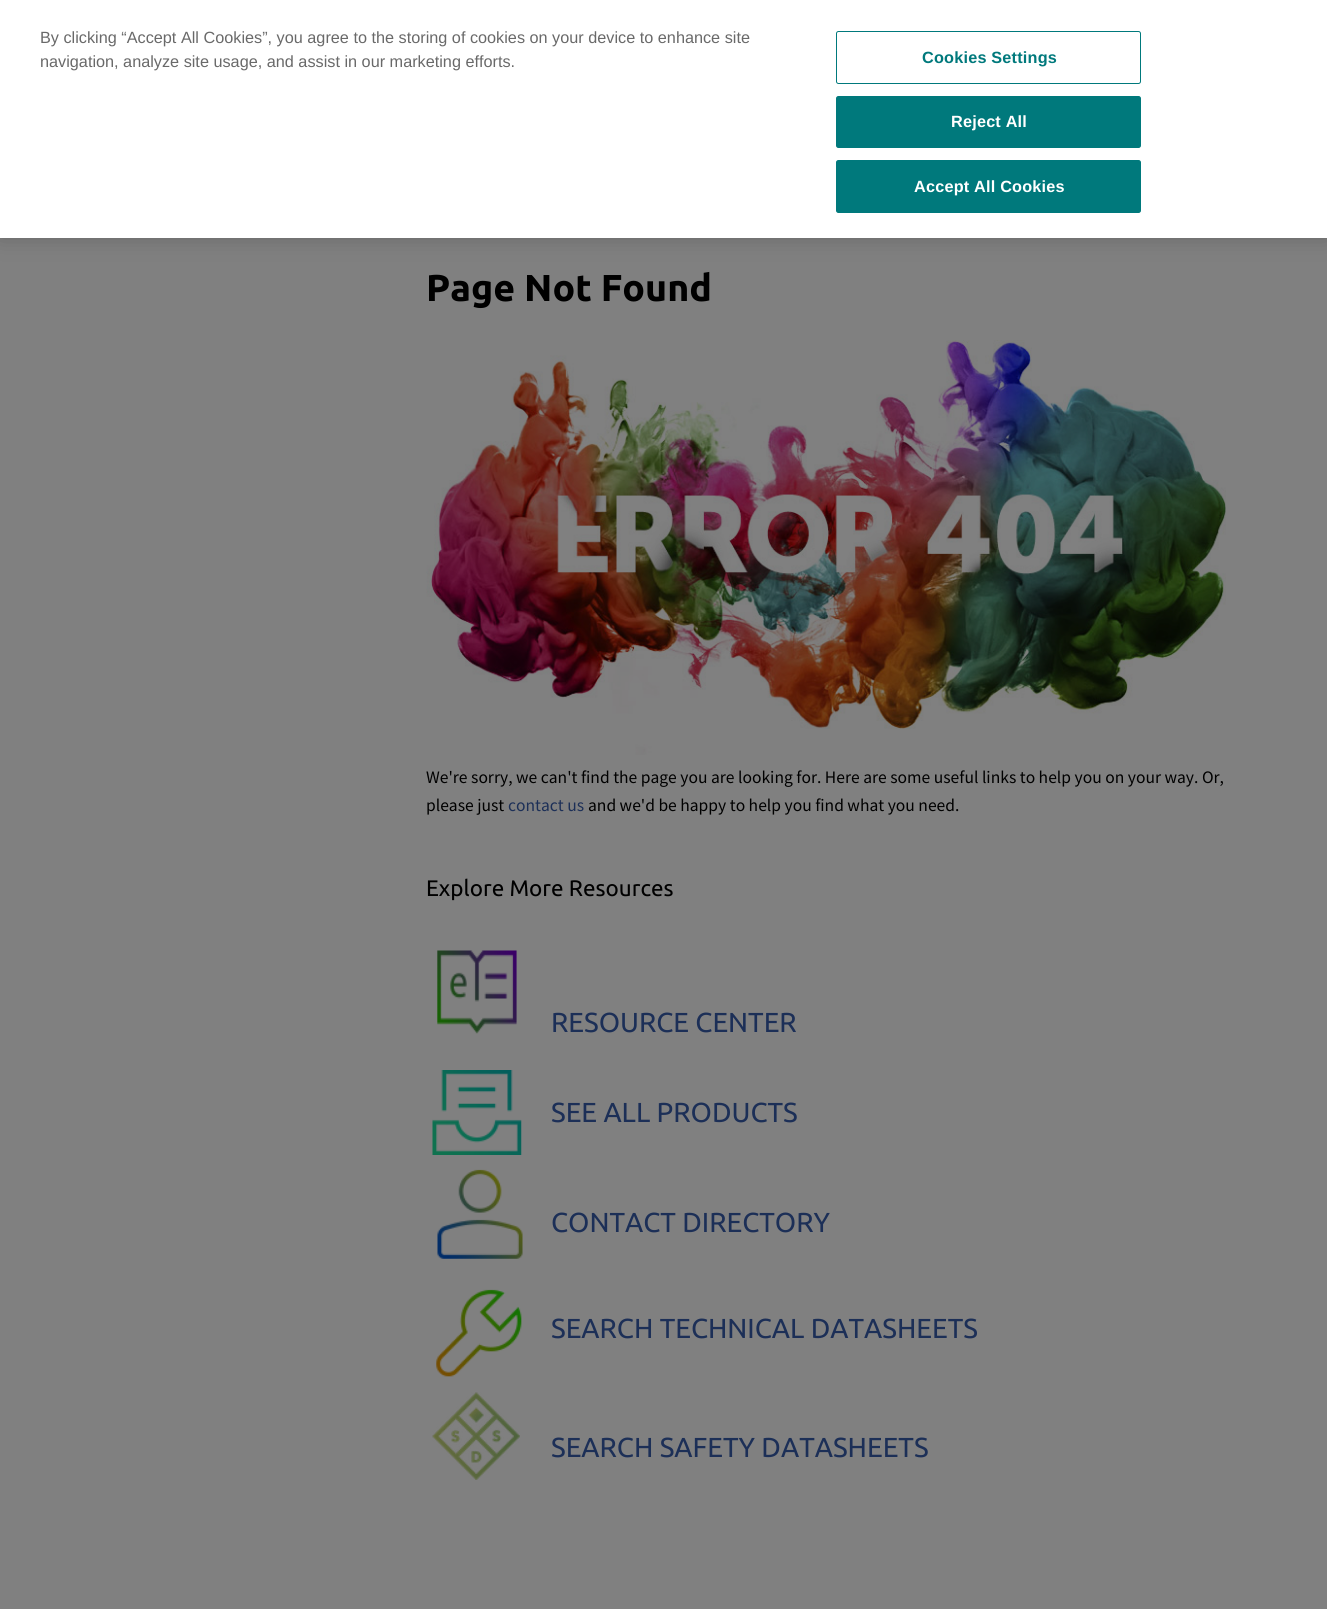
import math
import cairo

surface = cairo.ImageSurface(cairo.FORMAT_RGB24, 1327, 1609)
cr = cairo.Context(surface)
options = cairo.FontOptions()
options.set_hint_metrics(cairo.HINT_METRICS_OFF)
options.set_hint_style(cairo.HINT_STYLE_NONE)
cr.set_font_options(options)
cr.set_miter_limit(4)


def rgb(code):
    cr.set_source_rgb(*(v / 255 for v in bytes.fromhex(code[-6:])))


def tracked(x, y, s, letter, word):
    cr.move_to(x, y)
    for ch in s:
        cr.show_text(ch)
        cr.rel_move_to(letter + word * (ch == ' '), 0)


def rrect(x, y, w, h, r):
    cr.new_sub_path()
    for i, (u, v) in enumerate([(x + w - r, y + h - r), (x + r, y + h - r), (x + r, y + r), (x + w - r, y + r)]):
        cr.arc(u, v, r, i * math.pi / 2, (i + 1) * math.pi / 2)
    cr.close_path()


def soft_shadow(x, y, w, h, r, blur, alpha):
    cr.push_group_with_content(cairo.CONTENT_ALPHA)
    cr.set_operator(cairo.OPERATOR_SOURCE)
    for i in range(15, -16, -2):
        e = blur * i / 6
        if min(w, h) + 2 * e > 0:
            cr.set_source_rgba(0, 0, 0, alpha * math.erfc((i - 1) / 8.5) / 2)
            rrect(x - e, y - e, w + 2 * e, h + 2 * e, max(0, min(r + e + blur * .6, min(w, h) / 2 + e)))
            cr.fill()
    cr.mask(cr.pop_group())


def image(path, x, y, w, h):
    cr.save()
    cr.set_source_surface(cairo.ImageSurface.create_from_png(path), x, y)
    cr.rectangle(x, y, w, h)
    cr.fill()
    cr.restore()


rgb("#808080")
cr.paint()
rgb("#000000")
soft_shadow(0, 0, 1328, 238, 0, 11, 0.2)
rgb("#ffffff")
cr.rectangle(0, 0, 1327, 238)
cr.fill()
rrect(836.5, 31.5, 304, 52, 2)
rgb("#00797c")
cr.set_line_width(1)
cr.stroke()
rrect(836.5, 96.5, 304, 51, 2)
cr.fill_preserve()
cr.stroke()
rrect(836.5, 160.5, 304, 52, 2)
cr.fill_preserve()
cr.stroke()
image("img/1.png", 426, 340, 800, 415)
image("img/2.png", 437, 950, 80, 84)
image("img/3.png", 432, 1070, 90, 85)
image("img/4.png", 437, 1169, 86, 90)
image("img/5.png", 436, 1289, 86, 88)
image("img/6.png", 432, 1392, 88, 88)
cr.select_font_face("Liberation Sans")
cr.set_font_size(16.25)
rgb("#696969")
cr.move_to(40, 43)
cr.show_text("By clicking “Accept All Cookies”, you agree to the storing of cookies on your device to enhance site")
cr.move_to(40, 67)
cr.show_text("navigation, analyze site usage, and assist in our marketing efforts.")
cr.select_font_face("Liberation Sans", cairo.FONT_SLANT_NORMAL, cairo.FONT_WEIGHT_BOLD)
rgb("#00797c")
tracked(922, 63, "Cookies Settings", 0.2, 0)
rgb("#ffffff")
tracked(951, 127, "Reject All", 0.2, 0)
tracked(914, 192, "Accept All Cookies", 0.2, 0)
cr.select_font_face("Ubuntu", cairo.FONT_SLANT_NORMAL, cairo.FONT_WEIGHT_BOLD)
cr.set_font_size(37.5)
rgb("#000000")
cr.move_to(426, 301)
cr.show_text("Page Not Found")
cr.select_font_face("Source Sans Pro")
cr.set_font_size(17.5)
cr.move_to(426, 783)
cr.show_text("We're sorry, we can't find the page you are looking for. Here are some useful links to help you on your way. Or,")
cr.move_to(426, 811)
cr.show_text("please just")
rgb("#1c2f57")
cr.move_to(508, 811)
cr.show_text("contact us")
rgb("#000000")
cr.move_to(588, 811)
cr.show_text("and we'd be happy to help you find what you need.")
cr.select_font_face("Ubuntu")
cr.set_font_size(22.5)
cr.move_to(426, 896)
cr.show_text("Explore More Resources")
cr.set_font_size(27.5)
rgb("#1c2f57")
for x, y, s in [
    (551, 1032, "RESOURCE CENTER"),
    (551, 1122, "SEE ALL PRODUCTS"),
    (551, 1232, "CONTACT DIRECTORY"),
    (551, 1338, "SEARCH TECHNICAL DATASHEETS"),
    (551, 1457, "SEARCH SAFETY DATASHEETS"),
]:
    cr.move_to(x, y)
    cr.show_text(s)
surface.write_to_png("page.png")
